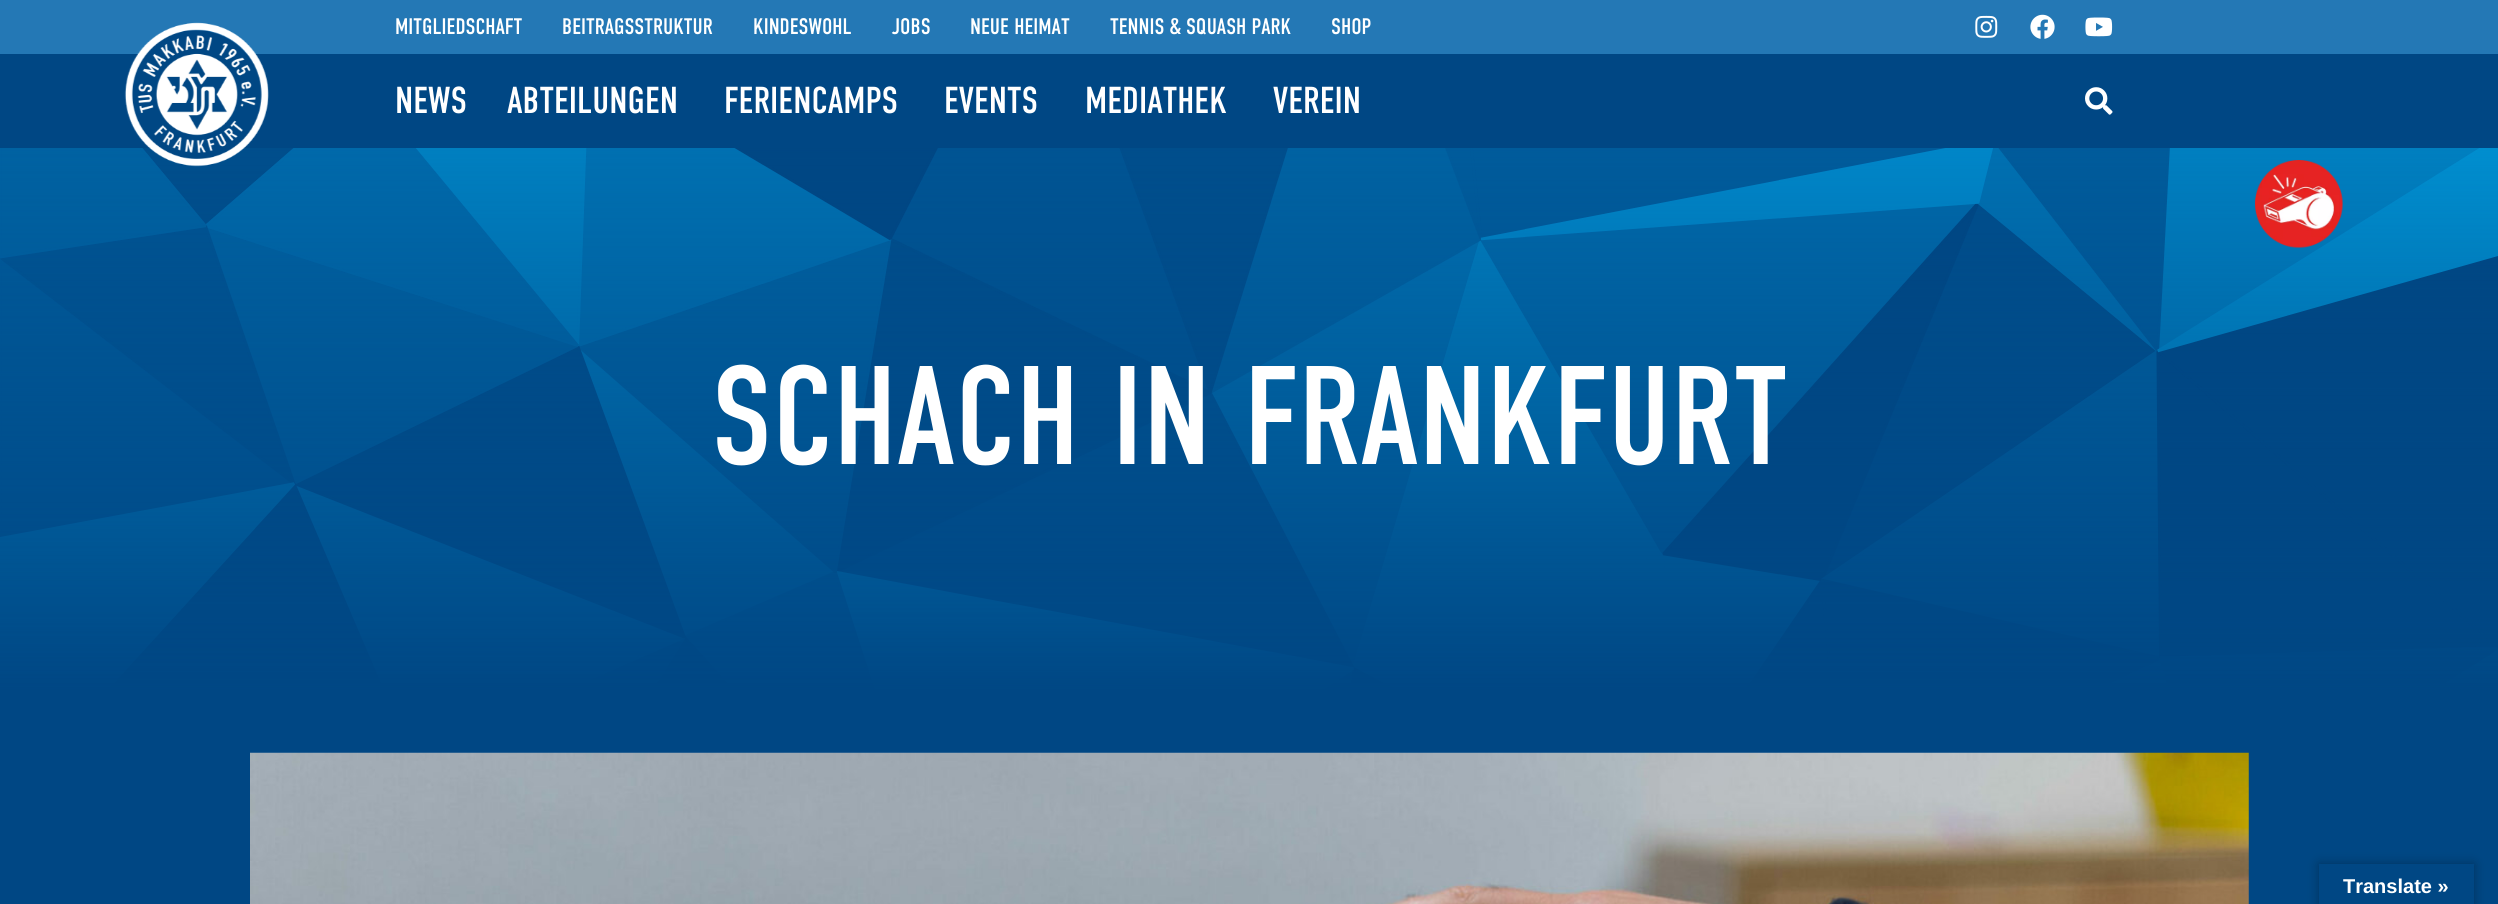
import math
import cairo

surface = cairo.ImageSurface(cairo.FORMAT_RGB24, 2498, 904)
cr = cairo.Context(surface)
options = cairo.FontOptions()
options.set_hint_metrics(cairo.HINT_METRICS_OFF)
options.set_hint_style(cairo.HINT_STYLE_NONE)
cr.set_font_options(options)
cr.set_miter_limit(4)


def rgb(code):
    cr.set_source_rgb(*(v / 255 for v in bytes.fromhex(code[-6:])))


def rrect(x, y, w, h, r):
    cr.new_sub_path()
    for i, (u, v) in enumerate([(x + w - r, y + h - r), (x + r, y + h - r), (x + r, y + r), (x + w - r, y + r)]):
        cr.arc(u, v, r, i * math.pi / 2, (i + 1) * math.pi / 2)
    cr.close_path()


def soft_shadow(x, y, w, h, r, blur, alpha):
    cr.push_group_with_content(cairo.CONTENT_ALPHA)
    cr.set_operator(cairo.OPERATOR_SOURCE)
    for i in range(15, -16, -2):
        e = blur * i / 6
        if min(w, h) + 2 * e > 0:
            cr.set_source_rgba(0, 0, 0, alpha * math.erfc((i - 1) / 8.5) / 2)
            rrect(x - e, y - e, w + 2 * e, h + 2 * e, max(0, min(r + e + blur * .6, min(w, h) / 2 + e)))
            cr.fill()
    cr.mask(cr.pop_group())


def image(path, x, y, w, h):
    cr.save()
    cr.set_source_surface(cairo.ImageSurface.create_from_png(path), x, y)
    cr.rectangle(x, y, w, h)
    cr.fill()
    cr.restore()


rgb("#004784")
cr.paint()
rgb("#2478b5")
cr.rectangle(0, 0, 2498, 54)
cr.fill()
image("img/7.png", 0, 148, 2498, 542)
image("img/1.png", 124, 22, 145, 145)
image("img/2.png", 1975, 15, 23, 23)
image("img/3.png", 2030, 14, 25, 25)
image("img/4.png", 2085, 17, 28, 20)
image("img/5.png", 2085, 87, 28, 28)
image("img/6.png", 2255, 160, 88, 88)
image("img/8.png", 250, 752, 1999, 152)
rgb("#000000")
soft_shadow(2319, 864, 155, 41, 0, 5.5, 0.3)
rgb("#004784")
cr.rectangle(2319, 864, 155, 40)
cr.fill()
cr.select_font_face("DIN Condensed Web")
cr.set_font_size(22.5)
rgb("#ffffff")
for x, y, s in [
    (395, 34, "MITGLIEDSCHAFT"),
    (562, 34, "BEITRAGSSTRUKTUR"),
    (753, 34, "KINDESWOHL"),
    (892, 34, "JOBS"),
    (970, 34, "NEUE HEIMAT"),
    (1110, 34, "TENNIS & SQUASH PARK"),
    (1331, 34, "SHOP"),
]:
    cr.move_to(x, y)
    cr.show_text(s)
cr.set_font_size(37.5)
for x, y, s in [
    (395, 113, "NEWS"),
    (507, 113, "ABTEILUNGEN"),
    (724, 113, "FERIENCAMPS"),
    (944, 113, "EVENTS"),
    (1085, 113, "MEDIATHEK"),
    (1273, 113, "VEREIN"),
]:
    cr.move_to(x, y)
    cr.show_text(s)
cr.set_font_size(140)
cr.move_to(711, 464)
cr.show_text("SCHACH IN FRANKFURT")
cr.select_font_face("Liberation Sans", cairo.FONT_SLANT_NORMAL, cairo.FONT_WEIGHT_BOLD)
cr.set_font_size(20)
cr.move_to(2343, 893)
cr.show_text("Translate »")
surface.write_to_png("page.png")
